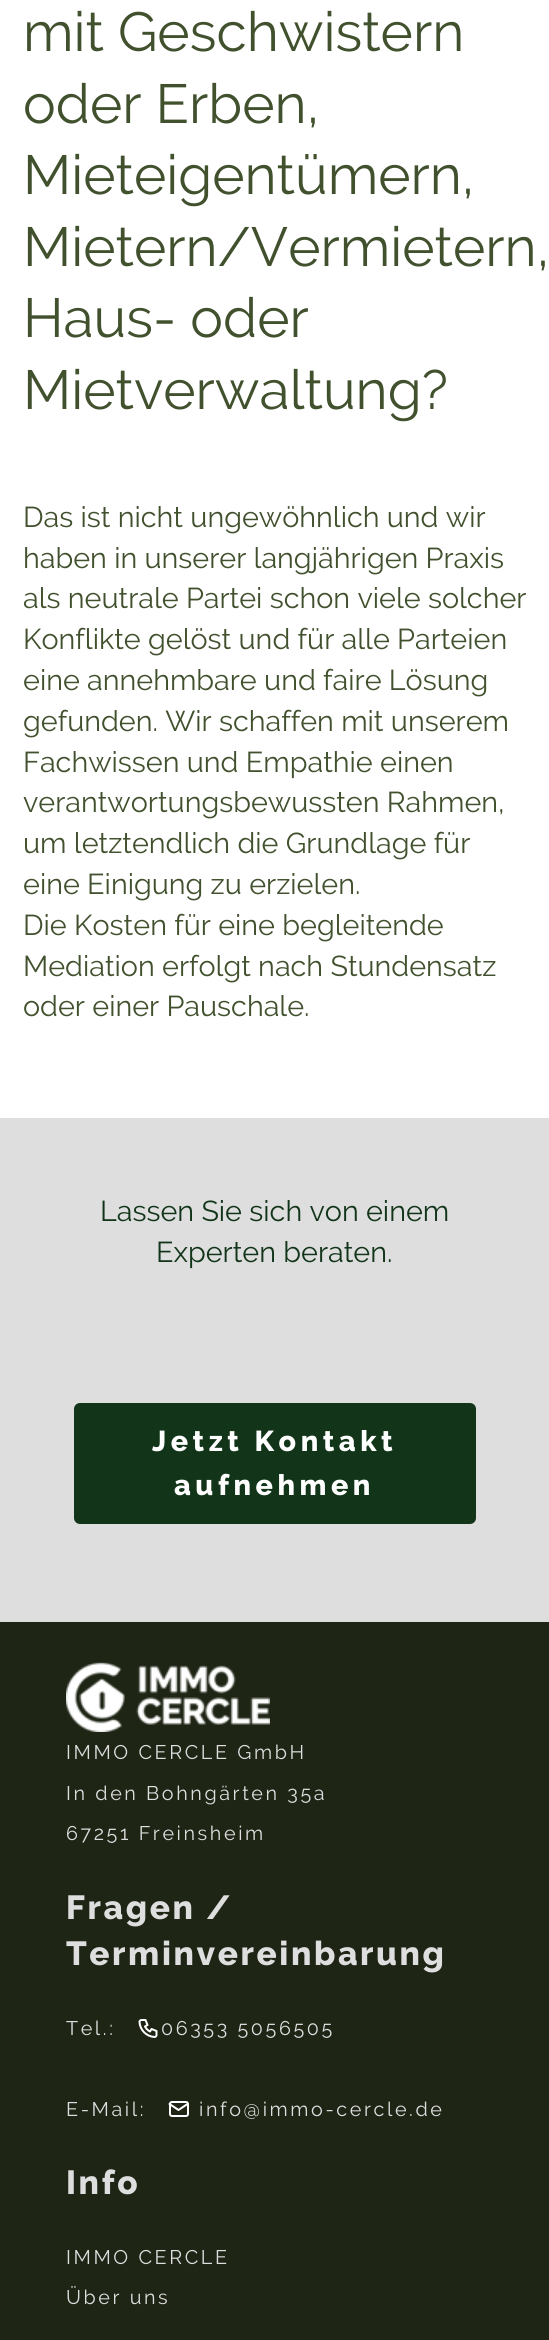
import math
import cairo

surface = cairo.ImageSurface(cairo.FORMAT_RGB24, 549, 2340)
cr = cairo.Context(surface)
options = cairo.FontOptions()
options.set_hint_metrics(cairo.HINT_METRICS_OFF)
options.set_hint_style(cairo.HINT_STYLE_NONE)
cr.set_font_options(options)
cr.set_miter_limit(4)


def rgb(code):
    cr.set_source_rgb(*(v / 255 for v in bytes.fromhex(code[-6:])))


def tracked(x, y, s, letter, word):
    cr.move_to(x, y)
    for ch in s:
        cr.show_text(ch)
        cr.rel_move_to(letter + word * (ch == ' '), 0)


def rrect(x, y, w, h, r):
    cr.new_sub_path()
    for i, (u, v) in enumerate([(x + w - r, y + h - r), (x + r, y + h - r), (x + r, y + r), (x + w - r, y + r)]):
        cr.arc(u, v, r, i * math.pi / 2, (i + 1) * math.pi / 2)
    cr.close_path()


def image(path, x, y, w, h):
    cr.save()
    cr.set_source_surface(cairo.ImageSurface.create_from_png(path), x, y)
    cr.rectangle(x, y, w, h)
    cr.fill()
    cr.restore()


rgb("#1e2515")
cr.paint()
rgb("#ffffff")
cr.rectangle(0, 0, 549, 1118)
cr.fill()
rgb("#dededf")
cr.rectangle(0, 1118, 549, 504)
cr.fill()
rgb("#12351a")
rrect(74, 1403, 402, 121, 6)
cr.fill()
image("img/1.png", 66, 1662, 204, 70)
image("img/2.png", 138, 2019, 20, 19)
rrect(170, 2102, 18, 14, 2)
rgb("#ffffff")
cr.stroke()
cr.new_path()
cr.move_to(169.5, 2104)
cr.line_to(178.5, 2110)
cr.line_to(187.5, 2104)
cr.set_line_cap(cairo.LINE_CAP_ROUND)
cr.set_line_join(cairo.LINE_JOIN_ROUND)
cr.stroke()
cr.select_font_face("Raleway")
cr.set_font_size(55)
rgb("#41502d")
for x, y, s in [
    (23, 51, "mit Geschwistern"),
    (23, 123, "oder Erben,"),
    (23, 194, "Mieteigentümern,"),
    (23, 266, "Mietern/Vermietern,"),
    (23, 337, "Haus- oder"),
    (23, 409, "Mietverwaltung?"),
]:
    cr.move_to(x, y)
    cr.show_text(s)
cr.set_font_size(28.75)
for x, y, s in [
    (23, 527, "Das ist nicht ungewöhnlich und wir"),
    (23, 568, "haben in unserer langjährigen Praxis"),
    (23, 608, "als neutrale Partei schon viele solcher"),
    (23, 649, "Konflikte gelöst und für alle Parteien"),
    (23, 690, "eine annehmbare und faire Lösung"),
    (23, 731, "gefunden. Wir schaffen mit unserem"),
    (23, 772, "Fachwissen und Empathie einen"),
    (23, 812, "verantwortungsbewussten Rahmen,"),
    (23, 853, "um letztendlich die Grundlage für"),
    (23, 894, "eine Einigung zu erzielen."),
    (23, 935, "Die Kosten für eine begleitende"),
    (23, 976, "Mediation erfolgt nach Stundensatz"),
    (23, 1016, "oder einer Pauschale."),
]:
    cr.move_to(x, y)
    cr.show_text(s)
rgb("#12351a")
cr.move_to(100, 1221)
cr.show_text("Lassen Sie sich von einem")
cr.move_to(156, 1262)
cr.show_text("Experten beraten.")
cr.select_font_face("Raleway Thin")
rgb("#ffffff")
tracked(152, 1451, "Jetzt Kontakt", 4.5, 0)
tracked(174, 1495, "aufnehmen", 4.5, 0)
cr.select_font_face("Raleway")
cr.set_font_size(19.75)
rgb("#dededf")
for x, y, s in [
    (66, 1759, "IMMO CERCLE GmbH"),
    (66, 1800, "In den Bohngärten 35a"),
    (66, 1840, "67251 Freinsheim"),
]:
    tracked(x, y, s, 2.6, 0)
cr.select_font_face("Raleway Thin")
cr.set_font_size(33.4)
tracked(66, 1919, "Fragen /", 2.6, 0)
tracked(66, 1965, "Terminvereinbarung", 2.6, 0)
cr.select_font_face("Raleway")
cr.set_font_size(19.75)
for x, y, s in [
    (66, 2035, "Tel.:"),
    (161, 2035, "06353 5056505"),
    (66, 2116, "E-Mail:"),
    (199, 2116, "info@immo-cercle.de"),
]:
    tracked(x, y, s, 2.6, 0)
cr.select_font_face("Raleway Thin")
cr.set_font_size(33.4)
tracked(66, 2194, "Info", 2.6, 0)
cr.select_font_face("Raleway")
cr.set_font_size(19.75)
tracked(66, 2264, "IMMO CERCLE", 2.6, 0)
tracked(66, 2304, "Über uns", 2.6, 0)
surface.write_to_png("page.png")
